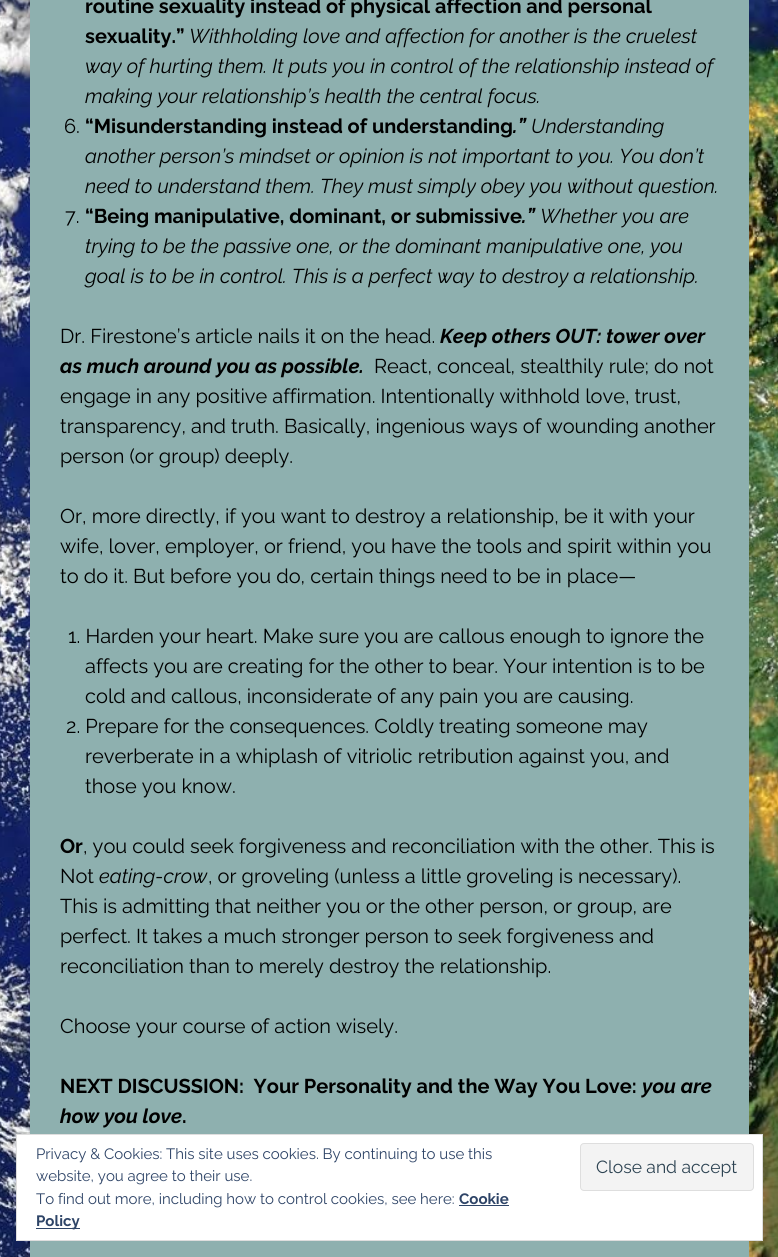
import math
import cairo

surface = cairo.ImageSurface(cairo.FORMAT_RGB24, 778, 1257)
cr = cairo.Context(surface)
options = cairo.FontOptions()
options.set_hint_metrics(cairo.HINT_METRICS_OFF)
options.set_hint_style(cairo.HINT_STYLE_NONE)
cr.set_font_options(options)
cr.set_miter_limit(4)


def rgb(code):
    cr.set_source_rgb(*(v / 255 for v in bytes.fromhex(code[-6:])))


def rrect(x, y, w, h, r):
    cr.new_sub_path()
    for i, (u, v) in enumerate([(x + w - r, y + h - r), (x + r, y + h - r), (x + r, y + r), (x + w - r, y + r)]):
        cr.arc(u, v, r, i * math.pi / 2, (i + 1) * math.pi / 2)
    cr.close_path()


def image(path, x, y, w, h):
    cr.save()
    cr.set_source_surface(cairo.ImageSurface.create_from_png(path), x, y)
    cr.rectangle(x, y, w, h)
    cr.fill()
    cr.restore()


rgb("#ffffff")
cr.paint()
image("img/1.png", 0, 0, 778, 1257)
rgb("#8eb0af")
cr.rectangle(30, 0, 719, 1257)
cr.fill()
rgb("#ffffff")
cr.rectangle(16.5, 1134.5, 746, 106)
cr.fill_preserve()
rgb("#dedede")
cr.set_line_width(1)
cr.stroke()
rgb("#f3f3f3")
rrect(580.5, 1143.5, 173, 47, 3.5)
cr.fill_preserve()
rgb("#dedede")
cr.stroke()
rgb("#2e4467")
cr.rectangle(459, 1205, 50, 1)
cr.fill()
cr.rectangle(36, 1228, 44, 1)
cr.fill()
cr.select_font_face("Raleway", cairo.FONT_SLANT_NORMAL, cairo.FONT_WEIGHT_BOLD)
cr.set_font_size(20)
rgb("#000000")
cr.move_to(85, 13)
cr.show_text("routine sexuality instead of physical affection and personal")
cr.move_to(85, 43)
cr.show_text("sexuality.”")
cr.select_font_face("Raleway", cairo.FONT_SLANT_ITALIC)
for x, y, s in [
    (189, 43, "Withholding love and affection for another is the cruelest"),
    (85, 73, "way of hurting them. It puts you in control of the relationship instead of"),
    (85, 103, "making your relationship’s health the central focus."),
]:
    cr.move_to(x, y)
    cr.show_text(s)
cr.select_font_face("Raleway")
cr.move_to(64, 133)
cr.show_text("6.")
cr.select_font_face("Raleway", cairo.FONT_SLANT_NORMAL, cairo.FONT_WEIGHT_BOLD)
cr.move_to(85, 133)
cr.show_text("“Misunderstanding instead of understanding")
cr.select_font_face("Raleway", cairo.FONT_SLANT_ITALIC, cairo.FONT_WEIGHT_BOLD)
cr.move_to(513, 133)
cr.show_text(".”")
cr.select_font_face("Raleway", cairo.FONT_SLANT_ITALIC)
for x, y, s in [
    (531, 133, "Understanding"),
    (85, 163, "another person’s mindset or opinion is not important to you. You don’t"),
    (85, 193, "need to understand them. They must simply obey you without question."),
]:
    cr.move_to(x, y)
    cr.show_text(s)
cr.select_font_face("Raleway")
cr.move_to(65, 223)
cr.show_text("7.")
cr.select_font_face("Raleway", cairo.FONT_SLANT_NORMAL, cairo.FONT_WEIGHT_BOLD)
cr.move_to(85, 223)
cr.show_text("“Being manipulative, dominant, or submissive")
cr.select_font_face("Raleway", cairo.FONT_SLANT_ITALIC, cairo.FONT_WEIGHT_BOLD)
cr.move_to(522, 223)
cr.show_text(".”")
cr.select_font_face("Raleway", cairo.FONT_SLANT_ITALIC)
for x, y, s in [
    (540, 223, "Whether you are"),
    (85, 253, "trying to be the passive one, or the dominant manipulative one, you"),
    (85, 283, "goal is to be in control. This is a perfect way to destroy a relationship."),
]:
    cr.move_to(x, y)
    cr.show_text(s)
cr.select_font_face("Raleway")
cr.move_to(60, 343)
cr.show_text("Dr. Firestone’s article nails it on the head.")
cr.select_font_face("Raleway", cairo.FONT_SLANT_ITALIC, cairo.FONT_WEIGHT_BOLD)
cr.move_to(440, 343)
cr.show_text("Keep others OUT: tower over")
cr.move_to(60, 373)
cr.show_text("as much around you as possible.")
cr.select_font_face("Raleway")
for x, y, s in [
    (374, 373, "React, conceal, stealthily rule; do not"),
    (60, 403, "engage in any positive affirmation. Intentionally withhold love, trust,"),
    (60, 433, "transparency, and truth. Basically, ingenious ways of wounding another"),
    (60, 463, "person (or group) deeply."),
    (60, 523, "Or, more directly, if you want to destroy a relationship, be it with your"),
    (60, 553, "wife, lover, employer, or friend, you have the tools and spirit within you"),
    (60, 583, "to do it. But before you do, certain things need to be in place—"),
    (68, 643, "1. Harden your heart. Make sure you are callous enough to ignore the"),
    (85, 673, "affects you are creating for the other to bear. Your intention is to be"),
    (85, 703, "cold and callous, inconsiderate of any pain you are causing."),
    (66, 733, "2. Prepare for the consequences. Coldly treating someone may"),
    (85, 763, "reverberate in a whiplash of vitriolic retribution against you, and"),
    (85, 793, "those you know."),
]:
    cr.move_to(x, y)
    cr.show_text(s)
cr.select_font_face("Raleway", cairo.FONT_SLANT_NORMAL, cairo.FONT_WEIGHT_BOLD)
cr.move_to(60, 853)
cr.show_text("Or")
cr.select_font_face("Raleway")
cr.move_to(83, 853)
cr.show_text(", you could seek forgiveness and reconciliation with the other. This is")
cr.move_to(60, 883)
cr.show_text("Not")
cr.select_font_face("Raleway", cairo.FONT_SLANT_ITALIC)
cr.move_to(99, 883)
cr.show_text("eating-crow")
cr.select_font_face("Raleway")
for x, y, s in [
    (208, 883, ", or groveling (unless a little groveling is necessary)."),
    (60, 913, "This is admitting that neither you or the other person, or group, are"),
    (60, 943, "perfect. It takes a much stronger person to seek forgiveness and"),
    (60, 973, "reconciliation than to merely destroy the relationship."),
    (60, 1033, "Choose your course of action wisely."),
]:
    cr.move_to(x, y)
    cr.show_text(s)
cr.select_font_face("Raleway", cairo.FONT_SLANT_NORMAL, cairo.FONT_WEIGHT_BOLD)
cr.move_to(60, 1093)
cr.show_text("NEXT DISCUSSION:  Your Personality and the Way You Love:")
cr.select_font_face("Raleway", cairo.FONT_SLANT_ITALIC, cairo.FONT_WEIGHT_BOLD)
cr.move_to(642, 1093)
cr.show_text("you are")
cr.move_to(60, 1123)
cr.show_text("how you love")
cr.select_font_face("Raleway", cairo.FONT_SLANT_NORMAL, cairo.FONT_WEIGHT_BOLD)
cr.move_to(182, 1123)
cr.show_text(".")
cr.select_font_face("Raleway")
cr.set_font_size(15)
rgb("#2e4467")
cr.move_to(36, 1159)
cr.show_text("Privacy & Cookies: This site uses cookies. By continuing to use this")
cr.move_to(36, 1181)
cr.show_text("website, you agree to their use.")
cr.set_font_size(17.5)
rgb("#2e4453")
cr.move_to(596, 1173)
cr.show_text("Close and accept")
cr.set_font_size(15)
rgb("#2e4467")
cr.move_to(36, 1204)
cr.show_text("To find out more, including how to control cookies, see here:")
cr.select_font_face("Raleway", cairo.FONT_SLANT_NORMAL, cairo.FONT_WEIGHT_BOLD)
cr.move_to(459, 1204)
cr.show_text("Cookie")
cr.move_to(36, 1226)
cr.show_text("Policy")
surface.write_to_png("page.png")
